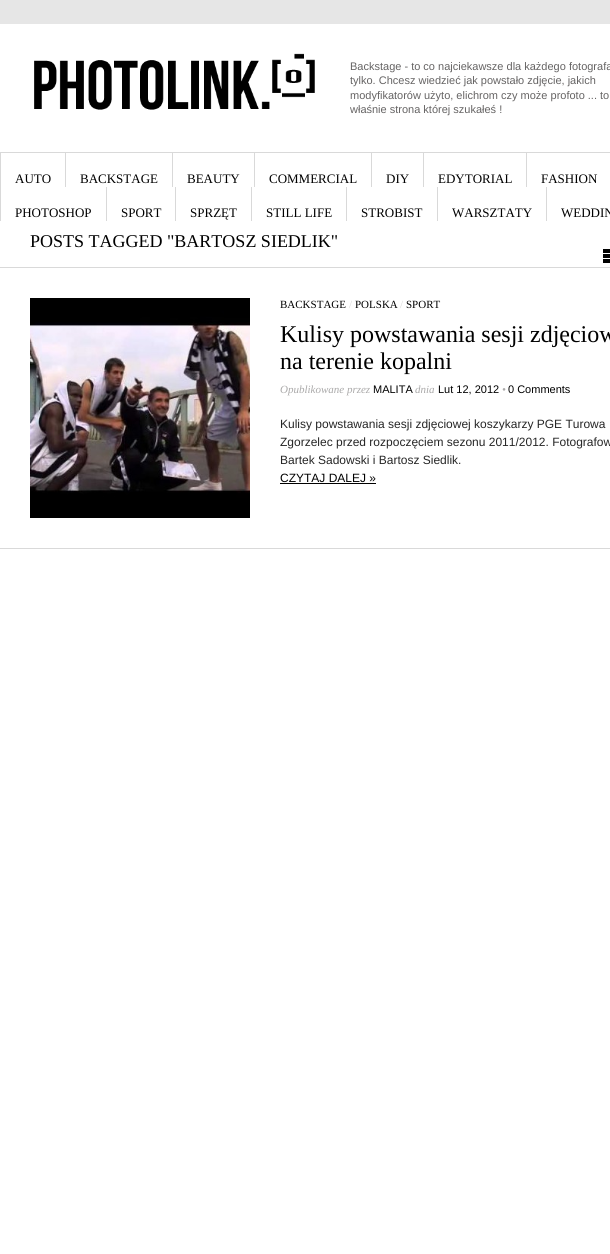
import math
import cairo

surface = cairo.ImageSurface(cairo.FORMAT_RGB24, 610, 1254)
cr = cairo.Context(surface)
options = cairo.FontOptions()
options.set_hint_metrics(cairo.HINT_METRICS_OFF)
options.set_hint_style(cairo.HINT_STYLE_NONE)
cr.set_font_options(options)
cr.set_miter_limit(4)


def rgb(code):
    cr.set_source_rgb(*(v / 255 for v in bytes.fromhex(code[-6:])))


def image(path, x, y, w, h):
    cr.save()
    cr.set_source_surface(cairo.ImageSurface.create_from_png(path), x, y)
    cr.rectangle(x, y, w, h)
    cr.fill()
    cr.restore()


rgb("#e6e6e6")
cr.paint()
rgb("#ffffff")
cr.rectangle(0, 24, 610, 1230)
cr.fill()
image("img/1.png", 34, 53, 281, 57)
for x, y, w, h, color in [
    (0, 152, 610, 1, "#d9d9d9"),
    (0, 153, 1, 68, "#d9d9d9"),
    (65, 153, 1, 34, "#d9d9d9"),
    (172, 153, 1, 34, "#d9d9d9"),
    (254, 153, 1, 34, "#d9d9d9"),
    (371, 153, 1, 34, "#d9d9d9"),
    (423, 153, 1, 34, "#d9d9d9"),
    (526, 153, 1, 34, "#d9d9d9"),
    (106, 187, 1, 34, "#d9d9d9"),
    (175, 187, 1, 34, "#d9d9d9"),
    (251, 187, 1, 34, "#d9d9d9"),
    (346, 187, 1, 34, "#d9d9d9"),
    (437, 187, 1, 34, "#d9d9d9"),
    (546, 187, 1, 34, "#d9d9d9"),
    (0, 267, 610, 1, "#d9d9d9"),
]:
    rgb(color)
    cr.rectangle(x, y, w, h)
    cr.fill()
image("img/2.png", 603, 249, 7, 14)
cr.rectangle(0, 548, 610, 1)
cr.fill()
image("img/3.png", 30, 298, 220, 220)
rgb("#000000")
cr.rectangle(280, 483, 96, 1)
cr.fill()
cr.select_font_face("Liberation Sans")
cr.set_font_size(11)
rgb("#656363")
for x, y, s in [
    (350, 70, "Backstage - to co najciekawsze dla każdego fotografa"),
    (350, 84, "tylko. Chcesz wiedzieć jak powstało zdjęcie, jakich"),
    (350, 99, "modyfikatorów użyto, elichrom czy może profoto ... to"),
    (350, 113, "właśnie strona której szukałeś !"),
]:
    cr.move_to(x, y)
    cr.show_text(s)
cr.select_font_face("Liberation Serif")
cr.set_font_size(13)
rgb("#000000")
for x, y, s in [
    (15, 183, "AUTO"),
    (80, 183, "BACKSTAGE"),
    (187, 183, "BEAUTY"),
    (269, 183, "COMMERCIAL"),
    (386, 183, "DIY"),
    (438, 183, "EDYTORIAL"),
    (541, 183, "FASHION"),
    (15, 217, "PHOTOSHOP"),
    (121, 217, "SPORT"),
    (190, 217, "SPRZĘT"),
    (266, 217, "STILL LIFE"),
    (361, 217, "STROBIST"),
    (452, 217, "WARSZTATY"),
    (561, 217, "WEDDIN"),
]:
    cr.move_to(x, y)
    cr.show_text(s)
cr.set_font_size(18)
cr.move_to(30, 247)
cr.show_text("POSTS TAGGED \"BARTOSZ SIEDLIK\"")
cr.set_font_size(11)
cr.move_to(280, 308)
cr.show_text("BACKSTAGE")
rgb("#d9d9d9")
cr.move_to(349, 308)
cr.show_text("/")
rgb("#000000")
cr.move_to(355, 308)
cr.show_text("POLSKA")
rgb("#d9d9d9")
cr.move_to(400, 308)
cr.show_text("/")
rgb("#000000")
cr.move_to(406, 308)
cr.show_text("SPORT")
cr.set_font_size(24)
cr.move_to(280, 342)
cr.show_text("Kulisy powstawania sesji zdjęciow")
cr.move_to(280, 369)
cr.show_text("na terenie kopalni")
cr.select_font_face("Liberation Serif", cairo.FONT_SLANT_ITALIC)
cr.set_font_size(11)
rgb("#aaa9a9")
cr.move_to(280, 393)
cr.show_text("Opublikowane przez")
cr.select_font_face("Liberation Sans")
rgb("#000000")
cr.move_to(373, 393)
cr.show_text("MALITA")
cr.select_font_face("Liberation Serif", cairo.FONT_SLANT_ITALIC)
rgb("#aaa9a9")
cr.move_to(415, 393)
cr.show_text("dnia")
cr.select_font_face("Liberation Sans")
rgb("#000000")
cr.move_to(438, 393)
cr.show_text("Lut 12, 2012")
cr.select_font_face("Liberation Serif", cairo.FONT_SLANT_ITALIC)
rgb("#aaa9a9")
cr.move_to(502, 393)
cr.show_text("•")
cr.select_font_face("Liberation Sans")
rgb("#000000")
cr.move_to(508, 393)
cr.show_text("0 Comments")
cr.set_font_size(12)
rgb("#262626")
for x, y, s in [
    (280, 428, "Kulisy powstawania sesji zdjęciowej koszykarzy PGE Turowa"),
    (280, 446, "Zgorzelec przed rozpoczęciem sezonu 2011/2012. Fotografow"),
    (280, 464, "Bartek Sadowski i Bartosz Siedlik."),
]:
    cr.move_to(x, y)
    cr.show_text(s)
rgb("#000000")
cr.move_to(280, 482)
cr.show_text("CZYTAJ DALEJ »")
surface.write_to_png("page.png")
